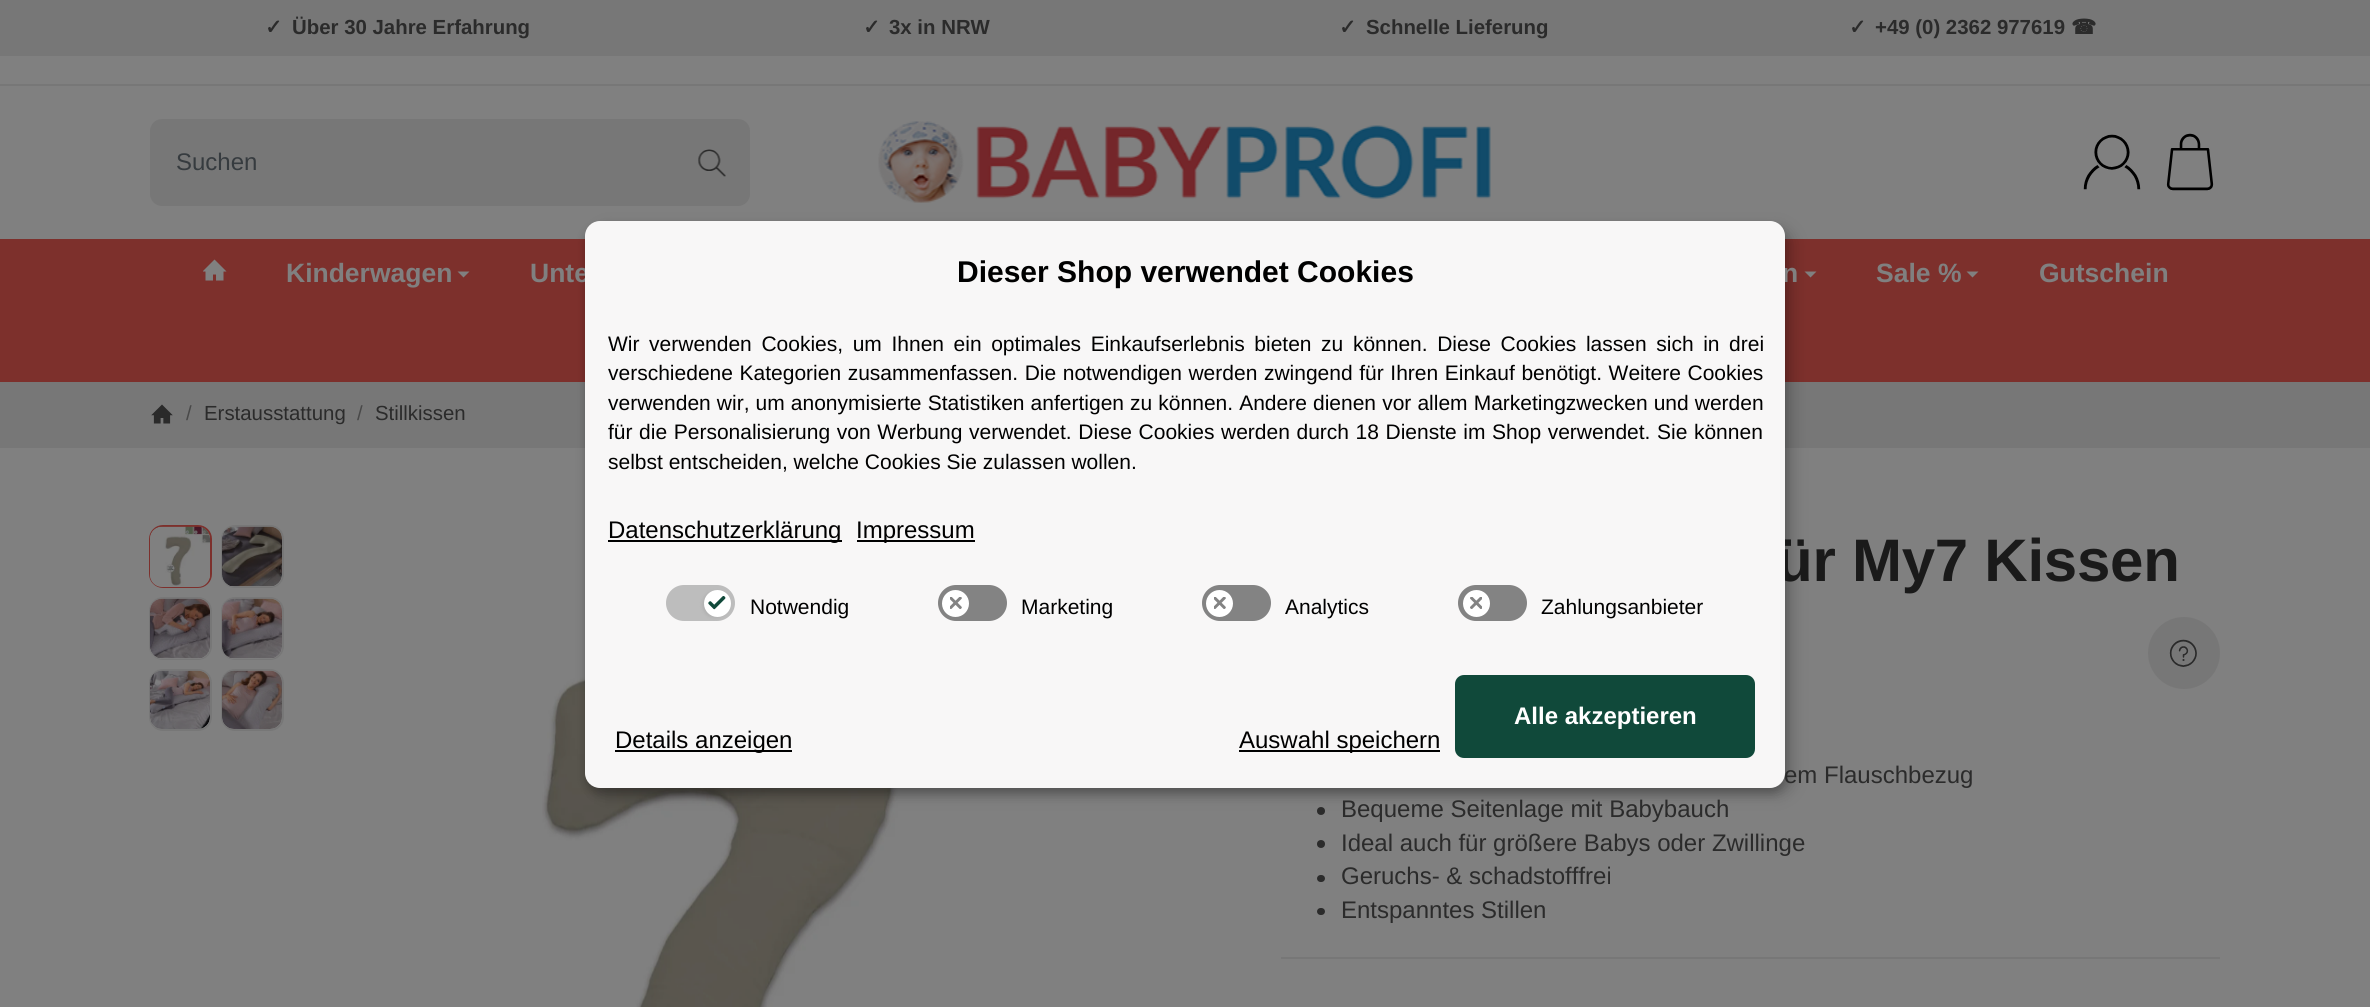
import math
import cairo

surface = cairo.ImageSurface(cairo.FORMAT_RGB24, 2370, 1007)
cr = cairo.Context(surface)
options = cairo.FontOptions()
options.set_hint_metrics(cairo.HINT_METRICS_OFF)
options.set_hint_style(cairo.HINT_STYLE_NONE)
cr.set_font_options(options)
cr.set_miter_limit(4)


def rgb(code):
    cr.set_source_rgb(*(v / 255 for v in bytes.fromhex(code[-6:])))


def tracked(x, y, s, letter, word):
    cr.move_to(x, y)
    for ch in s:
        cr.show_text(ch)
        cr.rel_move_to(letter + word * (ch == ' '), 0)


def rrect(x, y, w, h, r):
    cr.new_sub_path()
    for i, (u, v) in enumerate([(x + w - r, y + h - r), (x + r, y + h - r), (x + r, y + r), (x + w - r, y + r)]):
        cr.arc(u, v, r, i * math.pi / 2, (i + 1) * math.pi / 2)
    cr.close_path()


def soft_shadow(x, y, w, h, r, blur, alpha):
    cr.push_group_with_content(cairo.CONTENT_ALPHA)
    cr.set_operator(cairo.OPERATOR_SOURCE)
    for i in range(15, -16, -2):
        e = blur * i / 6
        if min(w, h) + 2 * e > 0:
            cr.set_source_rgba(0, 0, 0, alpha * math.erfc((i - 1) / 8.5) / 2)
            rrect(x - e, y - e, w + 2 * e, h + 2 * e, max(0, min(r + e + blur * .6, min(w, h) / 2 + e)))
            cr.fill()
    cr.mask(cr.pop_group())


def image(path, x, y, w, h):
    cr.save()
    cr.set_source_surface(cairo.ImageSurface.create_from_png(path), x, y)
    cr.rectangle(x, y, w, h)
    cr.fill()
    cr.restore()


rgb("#808080")
cr.paint()
rgb("#777777")
cr.rectangle(0, 0, 2370, 56)
cr.fill()
cr.rectangle(0, 84, 2370, 2)
cr.fill()
rrect(150, 119, 600, 87, 12)
cr.fill()
image("img/1.png", 698, 149, 28, 28)
image("img/2.png", 878, 121, 613, 82)
image("img/3.png", 2083, 134, 58, 56)
image("img/4.png", 2166, 133, 48, 58)
rgb("#7d302c")
cr.rectangle(0, 239, 2370, 143)
cr.fill()
rgb("#808080")
cr.new_path()
cr.move_to(1804.5, 271.5)
cr.line_to(1816.5, 271.5)
cr.line_to(1810.5, 277.5)
cr.close_path()
cr.fill()
rgb("#777777")
cr.rectangle(0, 382, 2370, 66)
cr.fill()
image("img/16.png", 542, 527, 621, 480)
rgb("#2b2b2b")
cr.arc(1321, 811, 4, 0, 2 * math.pi)
cr.fill()
rgb("#000000")
soft_shadow(593, 228, 1200, 567, 15, 7.5, 0.19)
soft_shadow(585, 227, 1200, 567, 15, 4.5, 0.2)
image("img/8.png", 203, 259, 24, 22)
rgb("#808080")
cr.new_path()
cr.move_to(457.5, 271.5)
cr.line_to(469.5, 271.5)
cr.line_to(463.5, 277.5)
cr.close_path()
cr.fill()
cr.new_path()
cr.move_to(1966.5, 271.5)
cr.line_to(1978.5, 271.5)
cr.line_to(1972.5, 277.5)
cr.close_path()
cr.fill()
image("img/9.png", 151, 404, 22, 20)
rrect(150, 526, 61, 61, 13)
rgb("#7d302c")
cr.stroke()
rgb("#808080")
rrect(150, 527, 60, 60, 12)
cr.fill()
image("img/10.png", 150, 526, 60, 60)
rrect(222, 526, 61, 61, 13)
rgb("#777777")
cr.stroke()
rgb("#808080")
rrect(222, 527, 60, 60, 12)
cr.fill()
image("img/11.png", 222, 526, 60, 61)
rrect(150, 598, 61, 61, 13)
rgb("#777777")
cr.stroke()
rgb("#808080")
rrect(150, 599, 60, 60, 12)
cr.fill()
image("img/12.png", 150, 598, 60, 61)
rrect(222, 598, 61, 61, 13)
rgb("#777777")
cr.stroke()
rgb("#808080")
rrect(222, 599, 60, 60, 12)
cr.fill()
image("img/13.png", 222, 598, 60, 61)
rrect(150, 670, 61, 60, 13)
rgb("#777777")
cr.stroke()
rgb("#808080")
rrect(150, 671, 60, 58, 12)
cr.fill()
image("img/14.png", 150, 670, 60, 59)
rrect(222, 670, 61, 60, 13)
rgb("#777777")
cr.stroke()
rgb("#808080")
rrect(222, 671, 60, 58, 12)
cr.fill()
image("img/15.png", 222, 670, 60, 59)
rgb("#777777")
cr.arc(2184, 653, 36, 0, 2 * math.pi)
cr.fill()
image("img/17.png", 2169, 639, 28, 28)
rgb("#2b2b2b")
cr.arc(1321, 844, 4, 0, 2 * math.pi)
cr.fill()
rrect(1317, 875, 8, 7, 3.5)
cr.fill()
rrect(1317, 908, 8, 7, 3.5)
cr.fill()
rgb("#777777")
cr.rectangle(1281, 957, 939, 2)
cr.fill()
cr.select_font_face("DejaVu Sans", cairo.FONT_SLANT_NORMAL, cairo.FONT_WEIGHT_BOLD)
cr.set_font_size(20.4)
rgb("#2b2b2b")
cr.move_to(265, 34)
cr.show_text("✓")
cr.select_font_face("Liberation Sans", cairo.FONT_SLANT_NORMAL, cairo.FONT_WEIGHT_BOLD)
cr.move_to(292, 34)
cr.show_text("Über 30 Jahre Erfahrung")
cr.select_font_face("DejaVu Sans", cairo.FONT_SLANT_NORMAL, cairo.FONT_WEIGHT_BOLD)
cr.move_to(863, 34)
cr.show_text("✓")
cr.select_font_face("Liberation Sans", cairo.FONT_SLANT_NORMAL, cairo.FONT_WEIGHT_BOLD)
cr.move_to(889, 34)
cr.show_text("3x in NRW")
cr.select_font_face("DejaVu Sans", cairo.FONT_SLANT_NORMAL, cairo.FONT_WEIGHT_BOLD)
cr.move_to(1339, 34)
cr.show_text("✓")
cr.select_font_face("Liberation Sans", cairo.FONT_SLANT_NORMAL, cairo.FONT_WEIGHT_BOLD)
cr.move_to(1366, 34)
cr.show_text("Schnelle Lieferung")
cr.select_font_face("DejaVu Sans", cairo.FONT_SLANT_NORMAL, cairo.FONT_WEIGHT_BOLD)
cr.move_to(1849, 34)
cr.show_text("✓")
cr.select_font_face("Liberation Sans", cairo.FONT_SLANT_NORMAL, cairo.FONT_WEIGHT_BOLD)
cr.move_to(1875, 34)
cr.show_text("+49 (0) 2362 977619")
cr.select_font_face("DejaVu Sans", cairo.FONT_SLANT_NORMAL, cairo.FONT_WEIGHT_BOLD)
cr.move_to(2071, 34)
cr.show_text("☎")
cr.select_font_face("Liberation Sans")
cr.set_font_size(24)
rgb("#363b3f")
cr.move_to(176, 170)
cr.show_text("Suchen")
cr.select_font_face("Liberation Sans", cairo.FONT_SLANT_NORMAL, cairo.FONT_WEIGHT_BOLD)
cr.set_font_size(26.5)
rgb("#808080")
for x, y, s in [
    (286, 282, "Kinderwagen"),
    (530, 282, "Unte"),
    (1782, 282, "n"),
    (1876, 282, "Sale %"),
    (2039, 282, "Gutschein"),
]:
    cr.move_to(x, y)
    cr.show_text(s)
cr.select_font_face("Liberation Sans")
cr.set_font_size(20.4)
rgb("#494949")
cr.move_to(186, 420)
cr.show_text("/")
rgb("#2b2b2b")
cr.move_to(204, 420)
cr.show_text("Erstausstattung")
rgb("#494949")
cr.move_to(357, 420)
cr.show_text("/")
rgb("#2b2b2b")
cr.move_to(375, 420)
cr.show_text("Stillkissen")
cr.select_font_face("Liberation Sans", cairo.FONT_SLANT_NORMAL, cairo.FONT_WEIGHT_BOLD)
cr.set_font_size(60)
rgb("#1a1a1a")
tracked(1776, 581, "ür My7 Kissen", -0.25, 0)
cr.select_font_face("Liberation Sans")
cr.set_font_size(24)
rgb("#2b2b2b")
cr.move_to(1784, 783)
cr.show_text("em Flauschbezug")
rgb("#f8f7f7")
rrect(585, 221, 1200, 567, 15)
cr.fill()
rgb("#838383")
rrect(1458, 585, 69, 36, 18)
cr.fill()
rgb("#ffffff")
cr.arc(1476.5, 603.5, 13.5, 0, 2 * math.pi)
cr.fill()
image("img/7.png", 1470, 597, 12, 12)
rgb("#838383")
rrect(1202, 585, 69, 36, 18)
cr.fill()
rgb("#ffffff")
cr.arc(1219.5, 603.5, 13.5, 0, 2 * math.pi)
cr.fill()
image("img/6.png", 1214, 597, 12, 12)
rgb("#838383")
rrect(938, 585, 69, 36, 18)
cr.fill()
rgb("#ffffff")
cr.arc(955.5, 603.5, 13.5, 0, 2 * math.pi)
cr.fill()
image("img/6.png", 950, 597, 12, 12)
rgb("#bdbdbd")
rrect(666, 585, 69, 36, 18)
cr.fill()
rgb("#a3a3a3")
soft_shadow(702, 591, 27, 27, 13.5, 1.5, 0.45)
rgb("#ffffff")
cr.arc(717.5, 603.5, 13.5, 0, 2 * math.pi)
cr.fill()
image("img/5.png", 708, 596, 18, 14)
cr.set_font_size(21)
rgb("#000000")
for x, y, s in [
    (1541, 614, "Zahlungsanbieter"),
    (1285, 614, "Analytics"),
    (1021, 614, "Marketing"),
    (750, 614, "Notwendig"),
]:
    cr.move_to(x, y)
    cr.show_text(s)
rgb("#10493a")
rrect(1456.5, 676.5, 297, 80, 7.5)
cr.fill_preserve()
cr.set_line_width(3)
cr.stroke()
cr.select_font_face("Liberation Sans", cairo.FONT_SLANT_NORMAL, cairo.FONT_WEIGHT_BOLD)
cr.set_font_size(24)
rgb("#ffffff")
cr.move_to(1514, 724)
cr.show_text("Alle akzeptieren")
rgb("#000000")
cr.rectangle(1239, 750, 201, 2)
cr.fill()
cr.select_font_face("Liberation Sans")
cr.move_to(1239, 748)
cr.show_text("Auswahl speichern")
cr.rectangle(615, 750, 177, 2)
cr.fill()
cr.move_to(615, 748)
cr.show_text("Details anzeigen")
cr.rectangle(857, 540, 118, 2)
cr.fill()
cr.move_to(856, 538)
cr.show_text("Impressum")
cr.rectangle(608, 540, 234, 2)
cr.fill()
cr.move_to(608, 538)
cr.show_text("Datenschutzerklärung")
cr.set_font_size(21)
cr.move_to(608, 469)
cr.show_text("selbst entscheiden, welche Cookies Sie zulassen wollen.")
tracked(608, 439, "für die Personalisierung von Werbung verwendet. Diese Cookies werden durch 18 Dienste im Shop verwendet. Sie können", 0, 0.75)
tracked(608, 410, "verwenden wir, um anonymisierte Statistiken anfertigen zu können. Andere dienen vor allem Marketingzwecken und werden", 0, 0.25)
tracked(608, 380, "verschiedene Kategorien zusammenfassen. Die notwendigen werden zwingend für Ihren Einkauf benötigt. Weitere Cookies", 0, 0.75)
tracked(608, 351, "Wir verwenden Cookies, um Ihnen ein optimales Einkaufserlebnis bieten zu können. Diese Cookies lassen sich in drei", 0, 3.75)
cr.select_font_face("Liberation Sans", cairo.FONT_SLANT_NORMAL, cairo.FONT_WEIGHT_BOLD)
cr.set_font_size(30)
cr.move_to(957, 282)
cr.show_text("Dieser Shop verwendet Cookies")
cr.select_font_face("Liberation Sans")
cr.set_font_size(24)
rgb("#2b2b2b")
for x, y, s in [
    (1341, 817, "Bequeme Seitenlage mit Babybauch"),
    (1341, 851, "Ideal auch für größere Babys oder Zwillinge"),
    (1341, 884, "Geruchs- & schadstofffrei"),
    (1341, 918, "Entspanntes Stillen"),
]:
    cr.move_to(x, y)
    cr.show_text(s)
surface.write_to_png("page.png")
